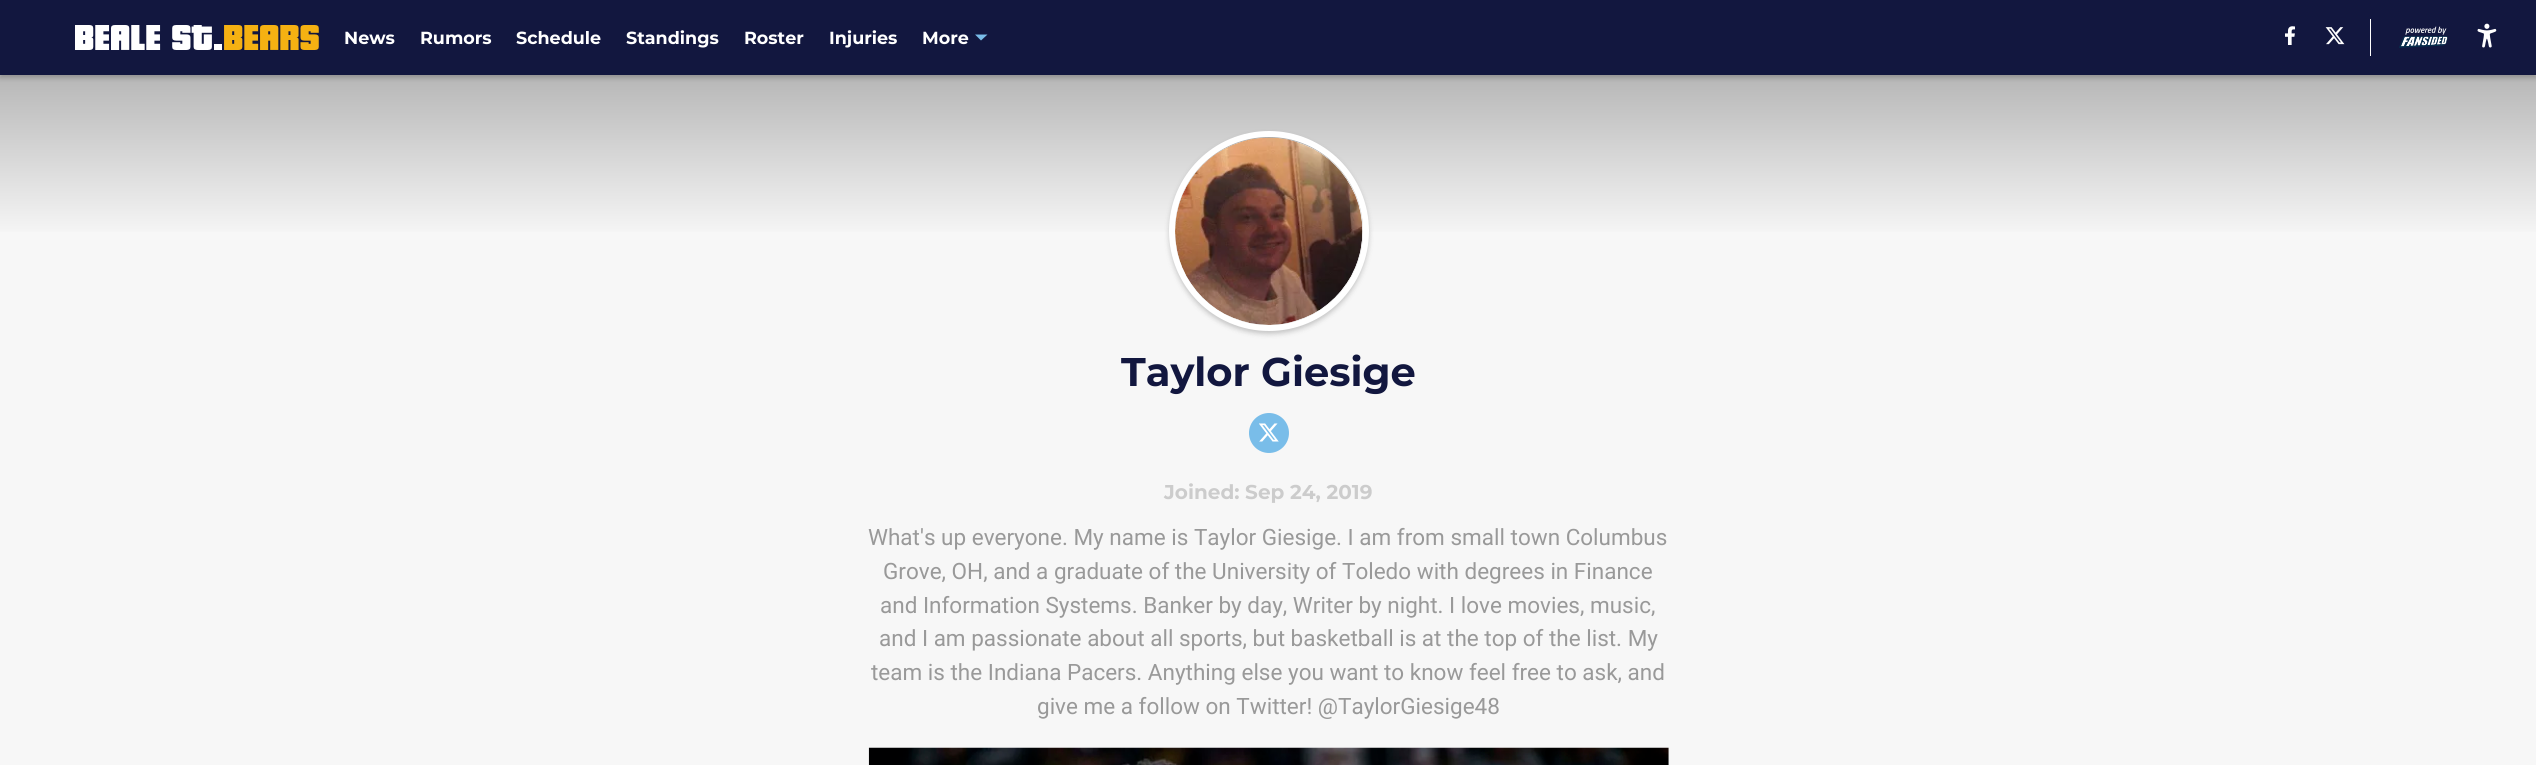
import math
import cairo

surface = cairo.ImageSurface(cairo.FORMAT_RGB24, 2536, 765)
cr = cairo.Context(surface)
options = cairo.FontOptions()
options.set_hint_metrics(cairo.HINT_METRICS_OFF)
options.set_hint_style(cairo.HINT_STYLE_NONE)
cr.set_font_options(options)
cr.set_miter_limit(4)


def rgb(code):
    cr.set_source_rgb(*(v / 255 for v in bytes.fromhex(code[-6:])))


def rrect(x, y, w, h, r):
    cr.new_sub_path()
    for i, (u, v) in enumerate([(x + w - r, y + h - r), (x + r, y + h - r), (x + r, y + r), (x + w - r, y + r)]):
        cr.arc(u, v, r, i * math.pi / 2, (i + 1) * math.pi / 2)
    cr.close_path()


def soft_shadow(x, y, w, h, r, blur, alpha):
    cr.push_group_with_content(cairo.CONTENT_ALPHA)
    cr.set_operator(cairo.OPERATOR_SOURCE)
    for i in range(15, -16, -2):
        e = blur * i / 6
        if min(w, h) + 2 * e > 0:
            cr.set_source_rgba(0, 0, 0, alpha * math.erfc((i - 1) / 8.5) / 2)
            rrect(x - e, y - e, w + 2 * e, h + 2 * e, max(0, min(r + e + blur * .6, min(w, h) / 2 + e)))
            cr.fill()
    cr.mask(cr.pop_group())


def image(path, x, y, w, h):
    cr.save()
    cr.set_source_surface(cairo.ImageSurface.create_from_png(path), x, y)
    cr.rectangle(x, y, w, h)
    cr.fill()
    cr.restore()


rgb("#f7f7f7")
cr.paint()
gradient = cairo.LinearGradient(1268, 238, 1268, 0)
gradient.add_color_stop_rgba(0, 0.969, 0.969, 0.969, 1)
gradient.add_color_stop_rgba(1, 0.6, 0.6, 0.6, 1)
cr.set_source(gradient)
cr.rectangle(0, 75, 2536, 157)
cr.fill()
rgb("#000000")
soft_shadow(0, 3, 2536, 75, 0, 2.5, 0.2)
rgb("#12173f")
cr.rectangle(0, 0, 2536, 75)
cr.fill()
image("img/1.png", 75, 25, 244, 25)
rgb("#79bde9")
cr.set_fill_rule(cairo.FILL_RULE_EVEN_ODD)
cr.new_path()
cr.move_to(975, 34.5)
cr.line_to(981, 40.5)
cr.line_to(987.5, 34.5)
cr.close_path()
cr.fill()
image("img/2.png", 2285, 26, 10, 19)
image("img/3.png", 2325, 27, 20, 18)
rgb("#ffffff")
cr.rectangle(2370, 19, 1, 37)
cr.fill()
image("img/4.png", 2399, 26, 49, 22)
image("img/5.png", 2477, 23, 20, 25)
rgb("#000000")
soft_shadow(1169, 134, 200, 200, 100, 2.5, 0.2)
cr.arc(1269, 231, 97, 0, 2 * math.pi)
rgb("#ffffff")
cr.set_line_width(6)
cr.stroke()
rgb("#f7f7f7")
rrect(1175, 138, 188, 187, 93.5)
cr.fill()
image("img/6.png", 1175, 137, 188, 188)
rgb("#79bde9")
cr.arc(1269, 433, 20, 0, 2 * math.pi)
cr.fill()
image("img/7.png", 1259, 423, 20, 19)
image("img/8.png", 868, 747, 801, 18)
gradient = cairo.LinearGradient(1269, 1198, 1269, 748)
gradient.add_color_stop_rgba(0, 0, 0, 0, 0.7)
gradient.add_color_stop_rgba(1, 0, 0, 0, 0)
cr.set_source(gradient)
cr.rectangle(1668, 764, 1, 1)
cr.fill()
cr.select_font_face("Montserrat", cairo.FONT_SLANT_NORMAL, cairo.FONT_WEIGHT_BOLD)
cr.set_font_size(17.5)
rgb("#ffffff")
for x, y, s in [
    (344, 44, "News"),
    (420, 44, "Rumors"),
    (516, 44, "Schedule"),
    (626, 44, "Standings"),
    (744, 44, "Roster"),
    (829, 44, "Injuries"),
    (922, 44, "More"),
]:
    cr.move_to(x, y)
    cr.show_text(s)
cr.set_font_size(40)
rgb("#12173f")
cr.move_to(1121, 386)
cr.show_text("Taylor Giesige")
cr.set_font_size(20)
rgb("#cccccc")
cr.move_to(1164, 499)
cr.show_text("Joined: Sep 24, 2019")
cr.select_font_face("Roboto")
cr.set_font_size(22.5)
rgb("#999999")
for x, y, s in [
    (868, 545, "What's up everyone. My name is Taylor Giesige. I am from small town Columbus"),
    (883, 579, "Grove, OH, and a graduate of the University of Toledo with degrees in Finance"),
    (880, 613, "and Information Systems. Banker by day, Writer by night. I love movies, music,"),
    (879, 646, "and I am passionate about all sports, but basketball is at the top of the list. My"),
    (871, 680, "team is the Indiana Pacers. Anything else you want to know feel free to ask, and"),
    (1037, 714, "give me a follow on Twitter! @TaylorGiesige48"),
]:
    cr.move_to(x, y)
    cr.show_text(s)
surface.write_to_png("page.png")
